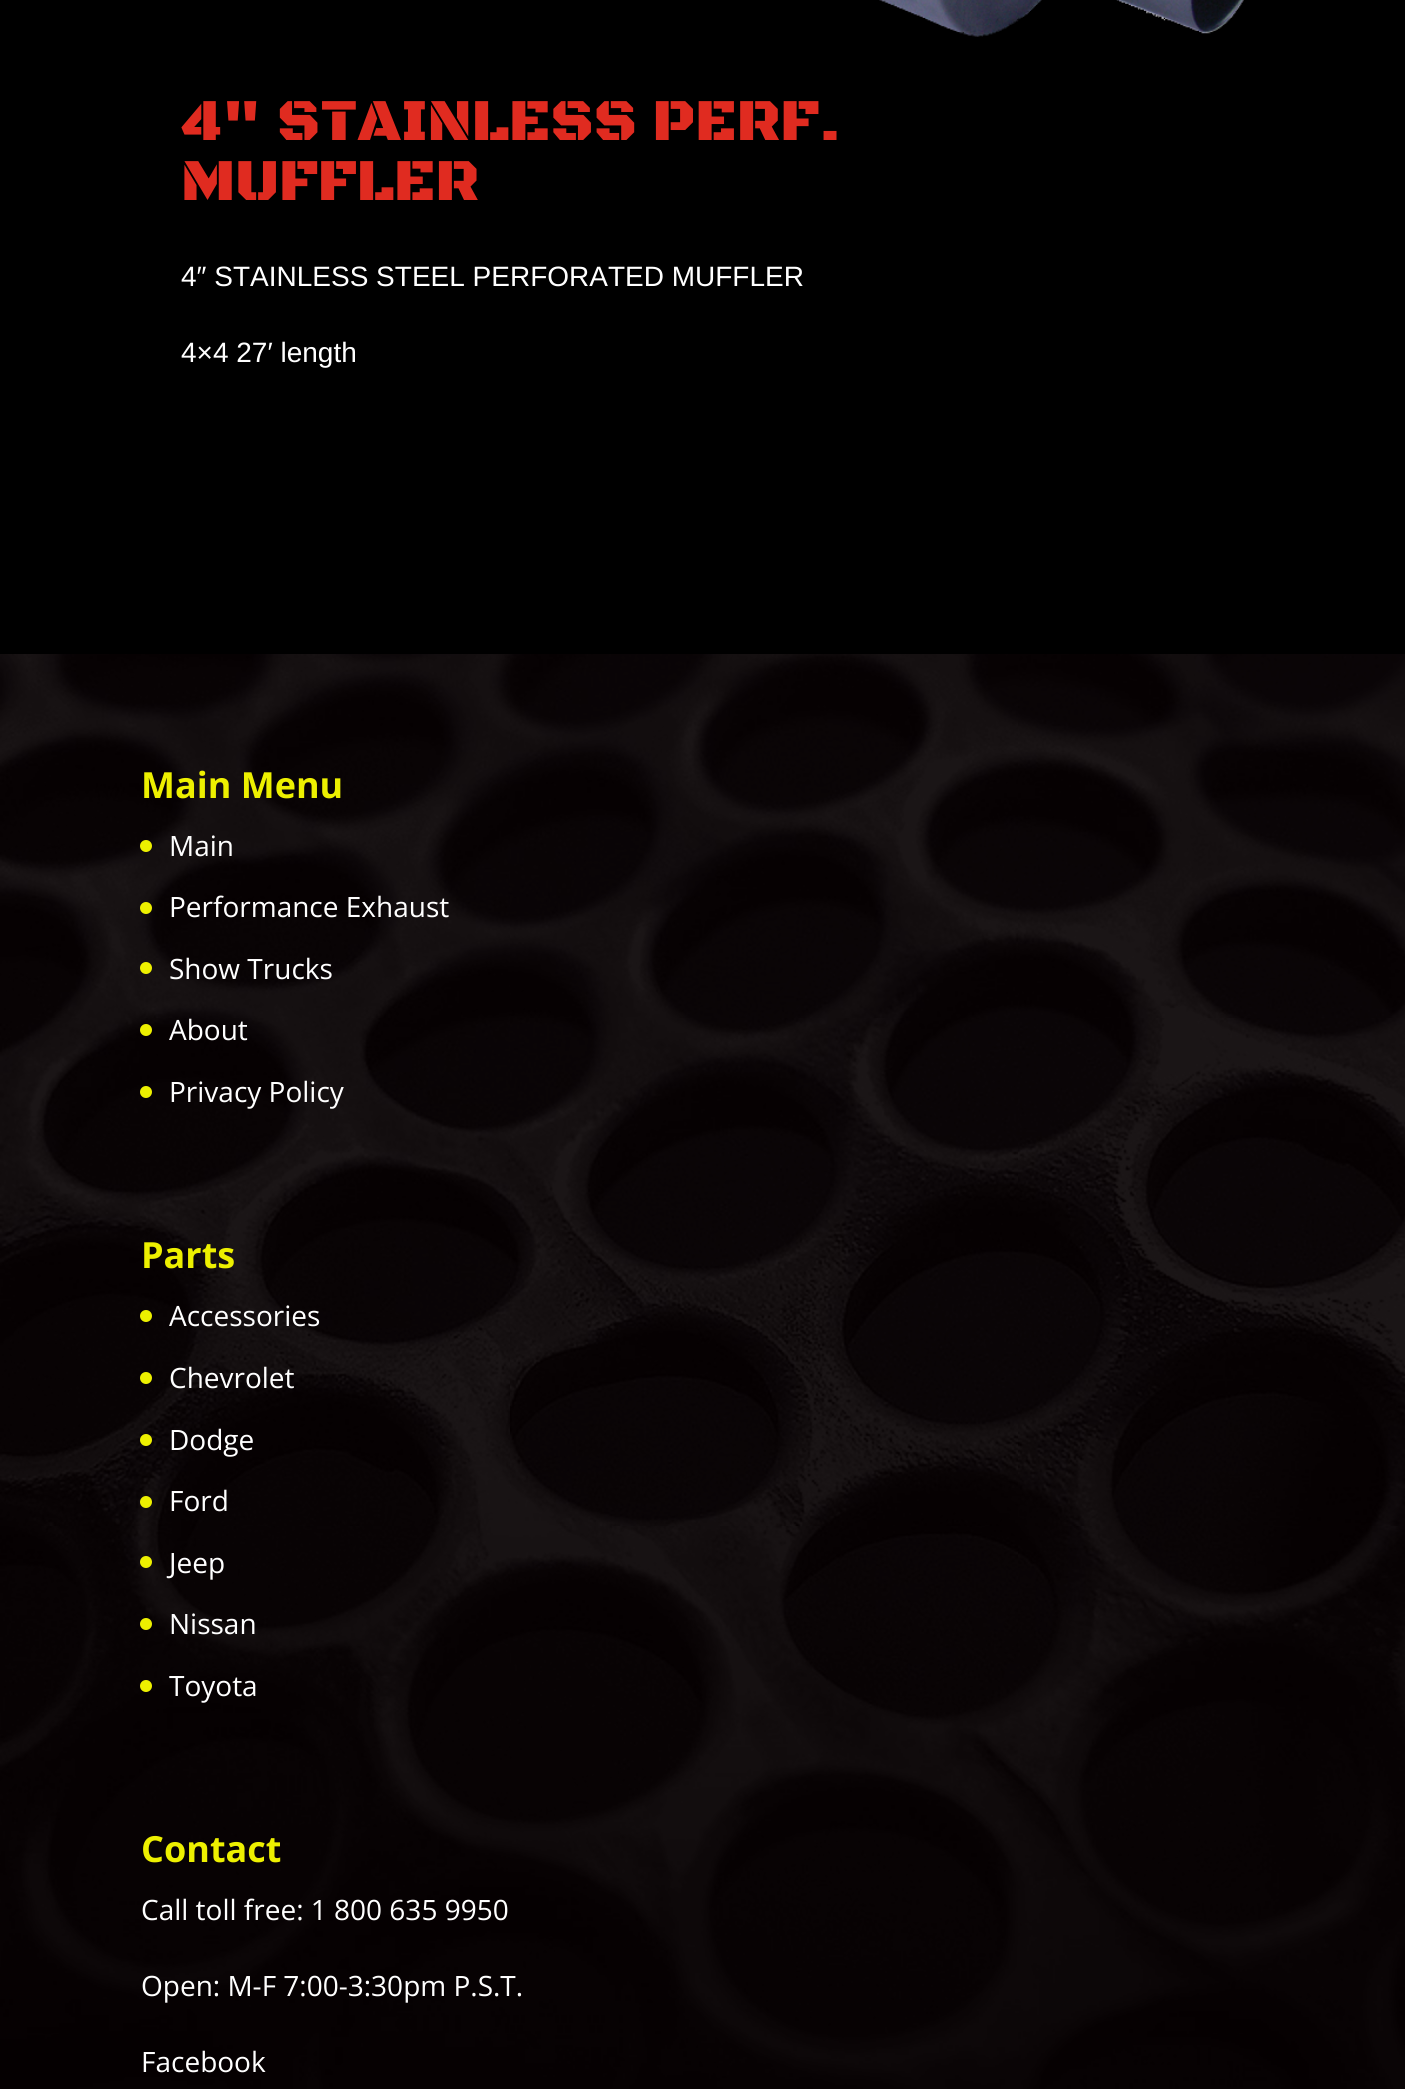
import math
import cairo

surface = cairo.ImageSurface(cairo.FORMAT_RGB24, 1405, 2089)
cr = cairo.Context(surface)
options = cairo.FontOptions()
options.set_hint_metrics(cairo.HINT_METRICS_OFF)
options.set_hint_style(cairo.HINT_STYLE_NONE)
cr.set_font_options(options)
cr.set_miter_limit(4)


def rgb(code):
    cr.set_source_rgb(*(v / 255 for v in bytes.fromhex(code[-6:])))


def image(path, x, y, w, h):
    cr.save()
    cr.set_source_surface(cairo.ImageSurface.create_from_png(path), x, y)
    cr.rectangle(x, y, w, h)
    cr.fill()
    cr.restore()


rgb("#ffffff")
cr.paint()
image("img/1.png", 0, 654, 1405, 1435)
rgb("#000000")
cr.rectangle(0, 0, 1405, 654)
cr.fill()
image("img/2.png", 879, 0, 365, 37)
cr.set_source_rgba(0.039, 0, 0.008, 0.58)
cr.rectangle(0, 654, 1405, 1435)
cr.fill()
rgb("#edf000")
cr.arc(146, 846, 6, 0, 2 * math.pi)
cr.fill()
cr.arc(146, 908, 6, 0, 2 * math.pi)
cr.fill()
cr.arc(146, 968, 6, 0, 2 * math.pi)
cr.fill()
cr.arc(146, 1030, 6, 0, 2 * math.pi)
cr.fill()
cr.arc(146, 1092, 6, 0, 2 * math.pi)
cr.fill()
cr.arc(146, 1316, 6, 0, 2 * math.pi)
cr.fill()
cr.arc(146, 1378, 6, 0, 2 * math.pi)
cr.fill()
cr.arc(146, 1440, 6, 0, 2 * math.pi)
cr.fill()
cr.arc(146, 1502, 6, 0, 2 * math.pi)
cr.fill()
cr.arc(146, 1562, 6, 0, 2 * math.pi)
cr.fill()
cr.arc(146, 1624, 6, 0, 2 * math.pi)
cr.fill()
cr.arc(146, 1686, 6, 0, 2 * math.pi)
cr.fill()
cr.select_font_face("Black Ops One Black")
cr.set_font_size(60)
rgb("#e02b20")
cr.move_to(181, 140)
cr.show_text("4\" STAINLESS PERF.")
cr.move_to(181, 200)
cr.show_text("MUFFLER")
cr.select_font_face("Liberation Sans")
cr.set_font_size(28)
rgb("#ffffff")
cr.move_to(181, 286)
cr.show_text("4″ STAINLESS STEEL PERFORATED MUFFLER")
cr.move_to(181, 362)
cr.show_text("4×4 27′ length")
cr.select_font_face("Open Sans", cairo.FONT_SLANT_NORMAL, cairo.FONT_WEIGHT_BOLD)
cr.set_font_size(36)
rgb("#edf000")
cr.move_to(141, 798)
cr.show_text("Main Menu")
cr.select_font_face("Open Sans")
cr.set_font_size(28)
rgb("#ffffff")
for x, y, s in [
    (169, 856, "Main"),
    (169, 917, "Performance Exhaust"),
    (169, 979, "Show Trucks"),
    (169, 1040, "About"),
    (169, 1102, "Privacy Policy"),
]:
    cr.move_to(x, y)
    cr.show_text(s)
cr.select_font_face("Open Sans", cairo.FONT_SLANT_NORMAL, cairo.FONT_WEIGHT_BOLD)
cr.set_font_size(36)
rgb("#edf000")
cr.move_to(141, 1268)
cr.show_text("Parts")
cr.select_font_face("Open Sans")
cr.set_font_size(28)
rgb("#ffffff")
for x, y, s in [
    (169, 1326, "Accessories"),
    (169, 1388, "Chevrolet"),
    (169, 1450, "Dodge"),
    (169, 1511, "Ford"),
    (169, 1573, "Jeep"),
    (169, 1634, "Nissan"),
    (169, 1696, "Toyota"),
]:
    cr.move_to(x, y)
    cr.show_text(s)
cr.select_font_face("Open Sans", cairo.FONT_SLANT_NORMAL, cairo.FONT_WEIGHT_BOLD)
cr.set_font_size(36)
rgb("#edf000")
cr.move_to(141, 1862)
cr.show_text("Contact")
cr.select_font_face("Open Sans")
cr.set_font_size(28)
rgb("#ffffff")
for x, y, s in [
    (141, 1920, "Call toll free: 1 800 635 9950"),
    (141, 1996, "Open: M-F 7:00-3:30pm P.S.T."),
    (141, 2072, "Facebook"),
]:
    cr.move_to(x, y)
    cr.show_text(s)
surface.write_to_png("page.png")
